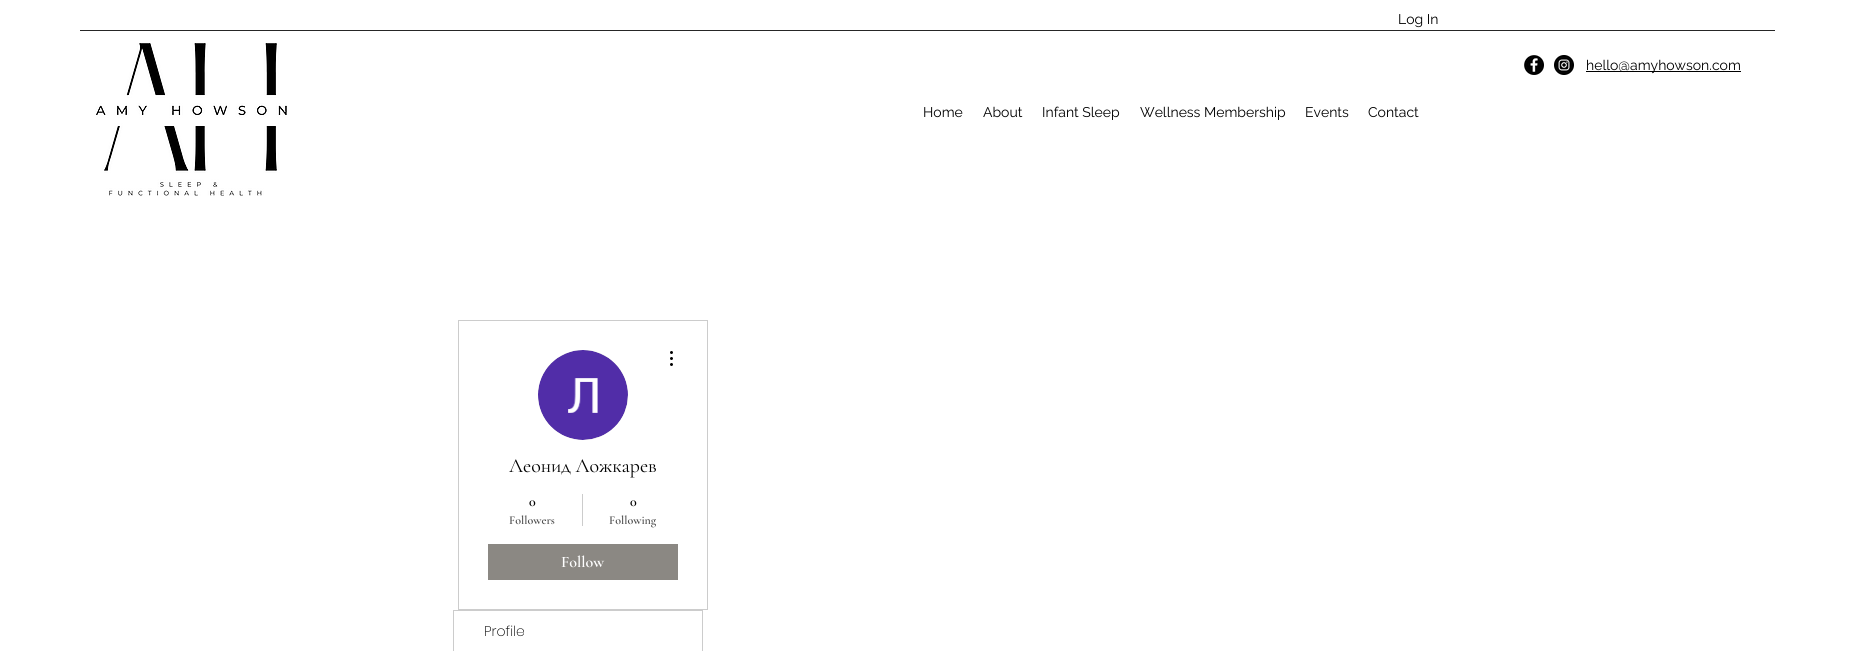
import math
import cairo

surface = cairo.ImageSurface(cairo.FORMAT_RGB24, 1855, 651)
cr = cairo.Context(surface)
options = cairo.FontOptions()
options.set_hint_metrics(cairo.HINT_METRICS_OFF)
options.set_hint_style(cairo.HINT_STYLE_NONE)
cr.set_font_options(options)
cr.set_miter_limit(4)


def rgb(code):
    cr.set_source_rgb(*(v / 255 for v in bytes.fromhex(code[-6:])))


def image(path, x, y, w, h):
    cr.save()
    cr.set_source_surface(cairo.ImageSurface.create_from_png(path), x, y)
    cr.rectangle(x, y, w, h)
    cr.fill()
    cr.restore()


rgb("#ffffff")
cr.paint()
rgb("#262626")
cr.rectangle(80, 30, 1695, 1)
cr.fill()
image("img/1.png", 95, 43, 192, 153)
image("img/2.png", 1524, 55, 20, 20)
image("img/3.png", 1554, 55, 20, 20)
rgb("#000000")
cr.rectangle(1586, 71, 155, 1)
cr.fill()
cr.rectangle(458.5, 320.5, 249, 289)
rgb("#cccccc")
cr.set_line_width(1)
cr.stroke()
rgb("#d8d8d8")
cr.arc(583, 395, 45, 0, 2 * math.pi)
cr.fill()
image("img/4.png", 538, 350, 90, 90)
image("img/5.png", 670, 351, 3, 15)
rgb("#cccccc")
cr.rectangle(582, 494, 1, 32)
cr.fill()
rgb("#8b8883")
cr.rectangle(488, 544, 190, 36)
cr.fill()
cr.rectangle(453.5, 610.5, 249, 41)
rgb("#cccccc")
cr.stroke()
cr.select_font_face("Raleway")
cr.set_font_size(14)
rgb("#000000")
for x, y, s in [
    (1398, 24, "Log In"),
    (1586, 70, "hello@amyhowson.com"),
    (923, 117, "Home"),
    (983, 117, "About"),
    (1042, 117, "Infant Sleep"),
    (1140, 117, "Wellness Membership"),
    (1305, 117, "Events"),
    (1368, 117, "Contact"),
]:
    cr.move_to(x, y)
    cr.show_text(s)
cr.select_font_face("Cormorant Garamond")
cr.set_font_size(20)
cr.move_to(509, 472)
cr.show_text("Леонид Ложкарев")
cr.select_font_face("Cormorant Garamond SemiBold")
cr.set_font_size(14)
cr.move_to(529, 506)
cr.show_text("0")
cr.set_font_size(12)
rgb("#4d4d4d")
cr.move_to(509, 524)
cr.show_text("Followers")
cr.set_font_size(14)
rgb("#000000")
cr.move_to(630, 506)
cr.show_text("0")
cr.set_font_size(12)
rgb("#4d4d4d")
cr.move_to(609, 524)
cr.show_text("Following")
cr.set_font_size(16)
rgb("#ffffff")
cr.move_to(561, 567)
cr.show_text("Follow")
cr.select_font_face("Poppins ExtraLight")
cr.set_font_size(14)
rgb("#000000")
cr.move_to(484, 636)
cr.show_text("Profile")
surface.write_to_png("page.png")
